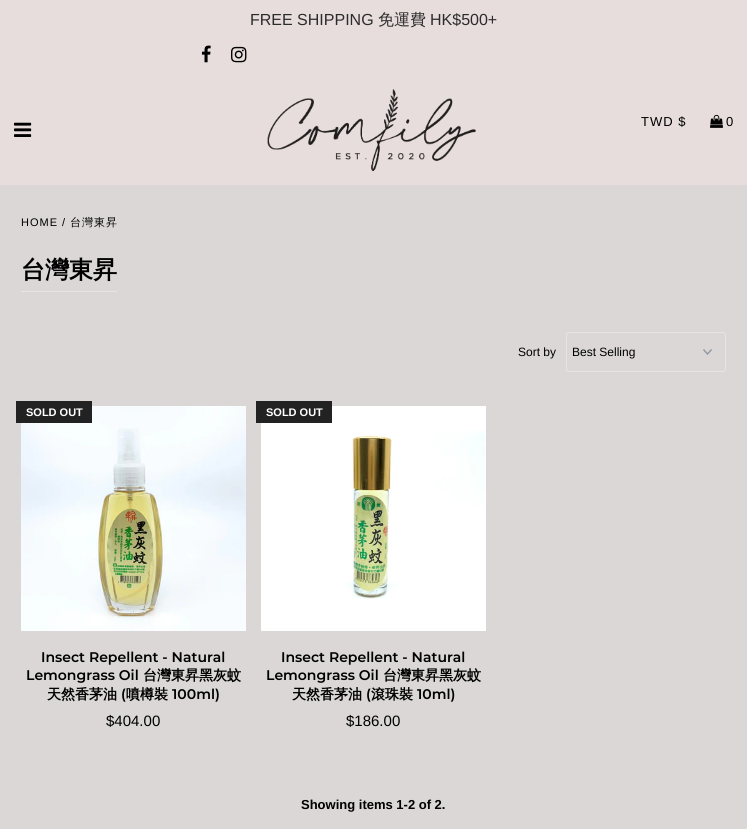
import math
import cairo

surface = cairo.ImageSurface(cairo.FORMAT_RGB24, 747, 829)
cr = cairo.Context(surface)
options = cairo.FontOptions()
options.set_hint_metrics(cairo.HINT_METRICS_OFF)
options.set_hint_style(cairo.HINT_STYLE_NONE)
cr.set_font_options(options)
cr.set_miter_limit(4)


def rgb(code):
    cr.set_source_rgb(*(v / 255 for v in bytes.fromhex(code[-6:])))


def tracked(x, y, s, letter, word):
    cr.move_to(x, y)
    for ch in s:
        cr.show_text(ch)
        cr.rel_move_to(letter + word * (ch == ' '), 0)


def rrect(x, y, w, h, r):
    cr.new_sub_path()
    for i, (u, v) in enumerate([(x + w - r, y + h - r), (x + r, y + h - r), (x + r, y + r), (x + w - r, y + r)]):
        cr.arc(u, v, r, i * math.pi / 2, (i + 1) * math.pi / 2)
    cr.close_path()


def image(path, x, y, w, h):
    cr.save()
    cr.set_source_surface(cairo.ImageSurface.create_from_png(path), x, y)
    cr.rectangle(x, y, w, h)
    cr.fill()
    cr.restore()


rgb("#dbd7d7")
cr.paint()
rgb("#e8dddd")
cr.rectangle(0, 0, 747, 185)
cr.fill()
image("img/1.png", 201, 45, 10, 18)
image("img/2.png", 231, 46, 16, 17)
image("img/3.png", 14, 122, 18, 15)
image("img/4.png", 267, 89, 209, 83)
image("img/5.png", 710, 114, 13, 14)
rgb("#e5e5e5")
cr.rectangle(21, 291, 96, 1)
cr.fill()
image("img/6.png", 703, 349, 9, 6)
rrect(566.5, 332.5, 159, 39, 2.5)
cr.set_line_width(1)
cr.stroke()
image("img/7.png", 21, 406, 225, 225)
rgb("#222222")
cr.rectangle(16, 401, 76, 22)
cr.fill()
rgb("#ffffff")
cr.rectangle(261, 406, 225, 225)
cr.fill()
image("img/8.png", 346, 431, 140, 168)
rgb("#222222")
cr.rectangle(256, 401, 76, 22)
cr.fill()
cr.select_font_face("Arimo")
cr.set_font_size(16)
rgb("#2c2c2c")
cr.move_to(250, 25)
cr.show_text("FREE SHIPPING")
cr.select_font_face("WenQuanYi Zen Hei Medium")
cr.move_to(378, 25)
cr.show_text("免運費")
cr.select_font_face("Arimo")
cr.move_to(430, 25)
cr.show_text("HK$500+")
cr.set_font_size(13)
rgb("#000000")
tracked(641, 126, "TWD $", 1, 0)
cr.move_to(726, 126)
cr.show_text("0")
cr.set_font_size(11)
tracked(21, 226, "HOME /", 1, 0)
cr.select_font_face("WenQuanYi Zen Hei Medium")
tracked(70, 226, "台灣東昇", 1, 0)
cr.select_font_face("WenQuanYi Zen Hei", cairo.FONT_SLANT_NORMAL, cairo.FONT_WEIGHT_BOLD)
cr.set_font_size(24)
cr.move_to(21, 278)
cr.show_text("台灣東昇")
cr.select_font_face("Arimo")
cr.set_font_size(12)
cr.move_to(518, 356)
cr.show_text("Sort by")
cr.move_to(572, 356)
cr.show_text("Best Selling")
cr.select_font_face("Arimo", cairo.FONT_SLANT_NORMAL, cairo.FONT_WEIGHT_BOLD)
cr.set_font_size(11)
rgb("#ffffff")
cr.move_to(26, 416)
cr.show_text("SOLD OUT")
cr.select_font_face("Montserrat SemiBold")
cr.set_font_size(14)
rgb("#000000")
cr.move_to(41, 662)
cr.show_text("Insect Repellent - Natural")
cr.move_to(26, 680)
cr.show_text("Lemongrass Oil")
cr.select_font_face("WenQuanYi Zen Hei", cairo.FONT_SLANT_NORMAL, cairo.FONT_WEIGHT_BOLD)
cr.move_to(143, 680)
cr.show_text("台灣東昇黑灰蚊")
cr.move_to(47, 699)
cr.show_text("天然香茅油")
cr.select_font_face("Montserrat SemiBold")
cr.move_to(121, 699)
cr.show_text("(")
cr.select_font_face("WenQuanYi Zen Hei", cairo.FONT_SLANT_NORMAL, cairo.FONT_WEIGHT_BOLD)
cr.move_to(126, 699)
cr.show_text("噴樽裝")
cr.select_font_face("Montserrat SemiBold")
cr.move_to(172, 699)
cr.show_text("100ml)")
cr.select_font_face("Arimo")
cr.set_font_size(15)
cr.move_to(106, 726)
cr.show_text("$404.00")
cr.select_font_face("Arimo", cairo.FONT_SLANT_NORMAL, cairo.FONT_WEIGHT_BOLD)
cr.set_font_size(11)
rgb("#ffffff")
cr.move_to(266, 416)
cr.show_text("SOLD OUT")
cr.select_font_face("Montserrat SemiBold")
cr.set_font_size(14)
rgb("#000000")
cr.move_to(281, 662)
cr.show_text("Insect Repellent - Natural")
cr.move_to(266, 680)
cr.show_text("Lemongrass Oil")
cr.select_font_face("WenQuanYi Zen Hei", cairo.FONT_SLANT_NORMAL, cairo.FONT_WEIGHT_BOLD)
cr.move_to(383, 680)
cr.show_text("台灣東昇黑灰蚊")
cr.move_to(292, 699)
cr.show_text("天然香茅油")
cr.select_font_face("Montserrat SemiBold")
cr.move_to(366, 699)
cr.show_text("(")
cr.select_font_face("WenQuanYi Zen Hei", cairo.FONT_SLANT_NORMAL, cairo.FONT_WEIGHT_BOLD)
cr.move_to(371, 699)
cr.show_text("滾珠裝")
cr.select_font_face("Montserrat SemiBold")
cr.move_to(417, 699)
cr.show_text("10ml)")
cr.select_font_face("Arimo")
cr.set_font_size(15)
cr.move_to(346, 726)
cr.show_text("$186.00")
cr.select_font_face("Arimo", cairo.FONT_SLANT_NORMAL, cairo.FONT_WEIGHT_BOLD)
cr.set_font_size(13)
cr.move_to(301, 809)
cr.show_text("Showing items 1-2 of 2.")
surface.write_to_png("page.png")
